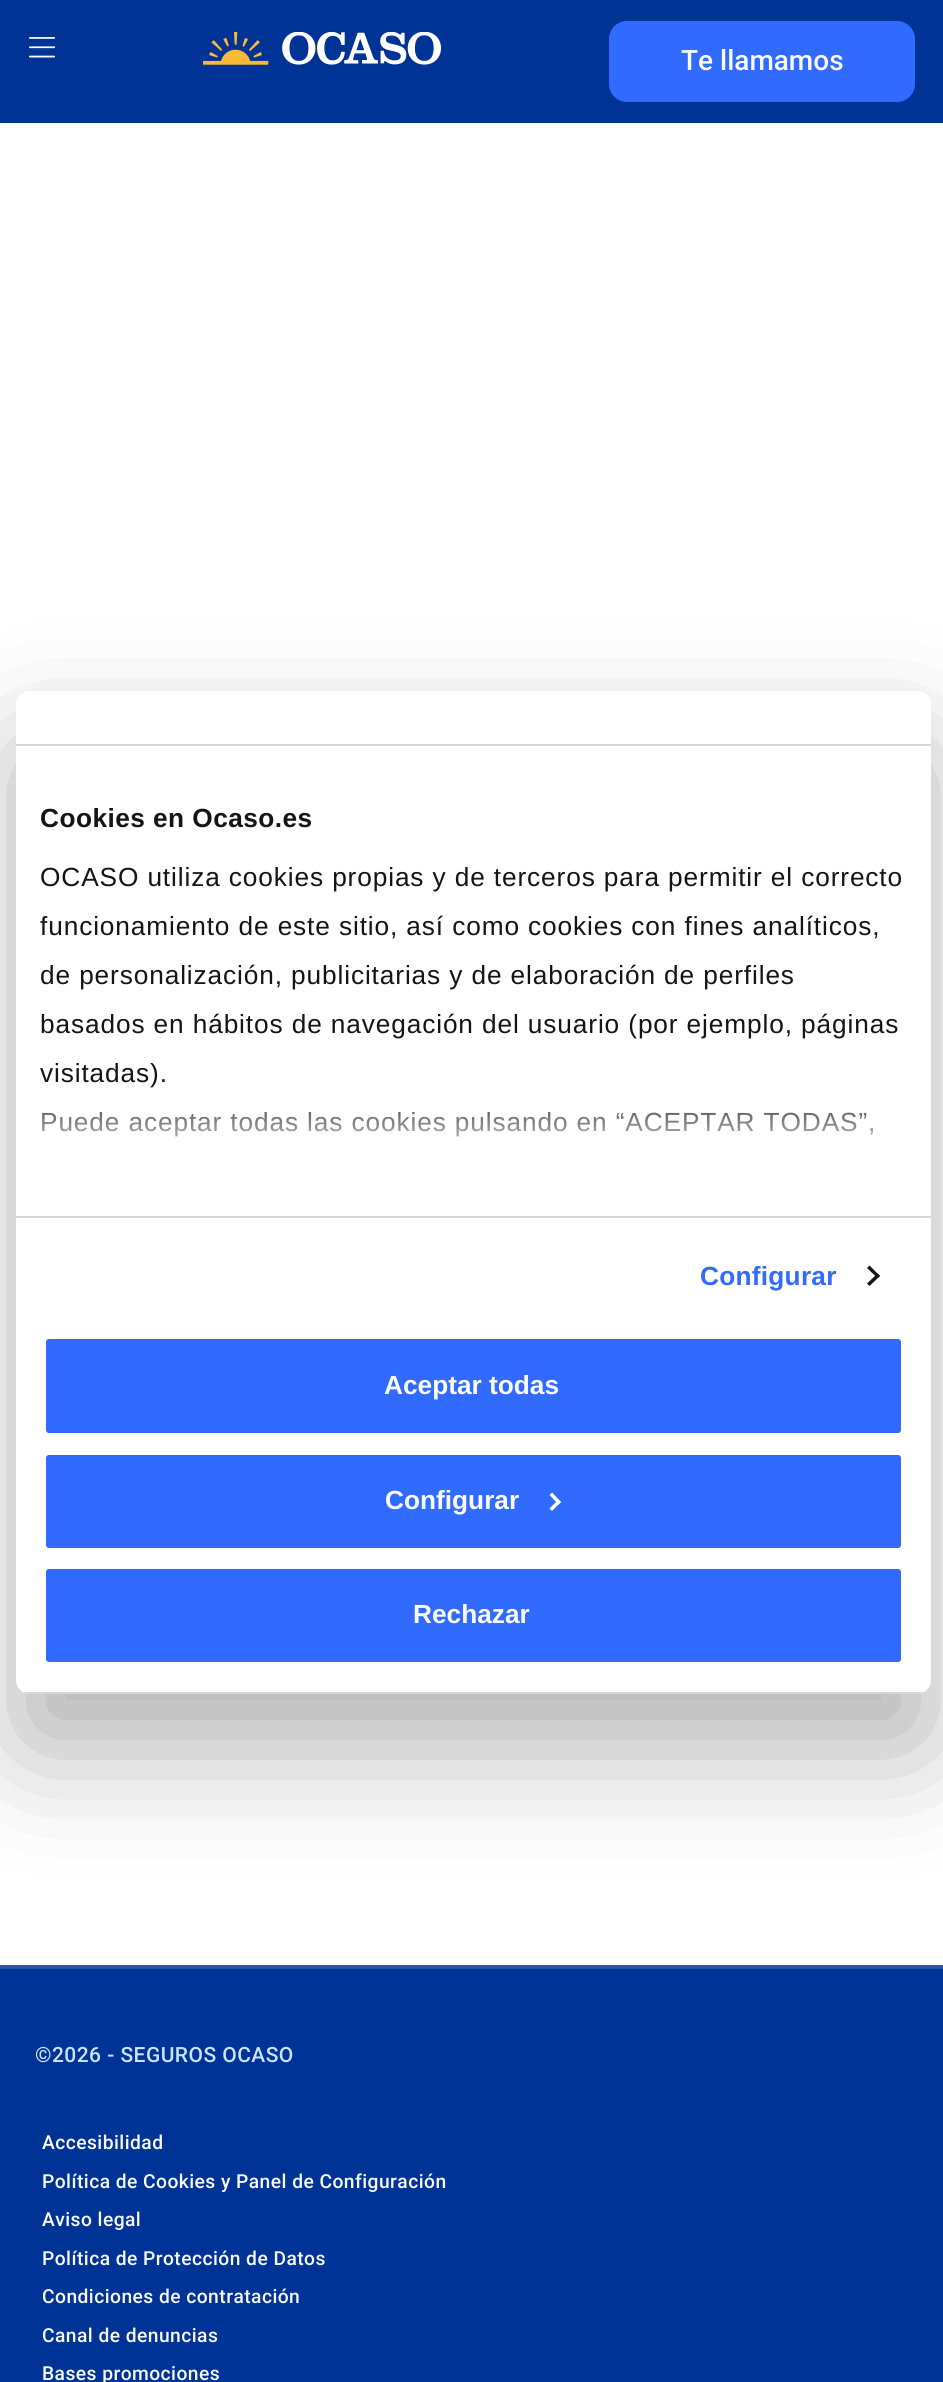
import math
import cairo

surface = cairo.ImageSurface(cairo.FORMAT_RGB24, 943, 2382)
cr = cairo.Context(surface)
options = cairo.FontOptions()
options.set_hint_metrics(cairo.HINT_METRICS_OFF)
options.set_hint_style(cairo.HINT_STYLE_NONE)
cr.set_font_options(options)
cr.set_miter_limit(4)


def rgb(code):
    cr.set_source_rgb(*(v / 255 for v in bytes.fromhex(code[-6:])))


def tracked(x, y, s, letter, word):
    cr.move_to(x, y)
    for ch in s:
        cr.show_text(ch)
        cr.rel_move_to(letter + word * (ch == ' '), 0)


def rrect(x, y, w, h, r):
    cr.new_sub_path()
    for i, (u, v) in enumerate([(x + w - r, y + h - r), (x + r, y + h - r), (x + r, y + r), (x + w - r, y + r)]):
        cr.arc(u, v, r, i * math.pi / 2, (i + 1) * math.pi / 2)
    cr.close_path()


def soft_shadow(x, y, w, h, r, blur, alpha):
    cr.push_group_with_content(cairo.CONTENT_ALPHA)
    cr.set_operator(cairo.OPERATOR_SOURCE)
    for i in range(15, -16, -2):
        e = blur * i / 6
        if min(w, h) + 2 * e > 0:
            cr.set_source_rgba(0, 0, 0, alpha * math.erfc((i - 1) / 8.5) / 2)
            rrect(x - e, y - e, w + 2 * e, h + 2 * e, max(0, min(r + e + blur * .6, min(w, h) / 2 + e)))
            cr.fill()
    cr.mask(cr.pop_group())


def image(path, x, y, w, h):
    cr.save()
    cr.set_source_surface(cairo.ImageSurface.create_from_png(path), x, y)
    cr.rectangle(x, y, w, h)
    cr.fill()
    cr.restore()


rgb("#ffffff")
cr.paint()
rgb("#003396")
cr.rectangle(0, 0, 943, 123)
cr.fill()
image("img/1.png", 28, 37, 28, 21)
image("img/2.png", 203, 32, 238, 33)
rgb("#316aff")
rrect(610, 22, 304, 79, 17)
cr.fill_preserve()
cr.stroke()
rgb("#000000")
soft_shadow(16, 747, 915, 1003, 14, 59.5, 0.3)
rgb("#ffffff")
rrect(16, 691, 915, 1003, 14)
cr.fill()
rgb("#d6d6d6")
cr.rectangle(16, 744, 915, 2)
cr.fill()
cr.rectangle(16, 1216, 915, 2)
cr.fill()
rgb("#141414")
cr.new_path()
cr.move_to(869.5, 1265.5)
cr.line_to(880, 1276)
cr.line_to(877.5, 1278)
cr.line_to(867, 1268)
cr.close_path()
cr.fill()
cr.new_path()
cr.move_to(877.5, 1273.5)
cr.line_to(880, 1276)
cr.line_to(869.5, 1286)
cr.line_to(867, 1283.5)
cr.close_path()
cr.fill()
cr.save()
rrect(16, 691, 915, 1003, 14)
cr.clip()
rgb("#d6d6d6")
cr.rectangle(16, 1692, 915, 2)
cr.fill()
cr.restore()
rgb("#316aff")
rrect(44, 1337, 859, 98, 5)
cr.fill_preserve()
rgb("#ffffff")
cr.set_line_width(4)
cr.stroke()
rgb("#316aff")
rrect(44, 1453, 859, 97, 5)
cr.fill_preserve()
rgb("#ffffff")
cr.stroke()
cr.new_path()
cr.move_to(552, 1492.5)
cr.line_to(561, 1502)
cr.line_to(558.5, 1504.5)
cr.line_to(549.5, 1495)
cr.close_path()
cr.fill()
cr.new_path()
cr.move_to(558.5, 1499.5)
cr.line_to(561, 1502)
cr.line_to(552, 1511)
cr.line_to(549.5, 1508.5)
cr.close_path()
cr.fill()
rgb("#316aff")
rrect(44, 1567, 859, 97, 5)
cr.fill_preserve()
rgb("#ffffff")
cr.stroke()
rgb("#003396")
cr.rectangle(0, 1969, 943, 413)
cr.fill()
rgb("#2755aa")
cr.rectangle(0, 1965, 943, 4)
cr.fill()
cr.select_font_face("Roboto Medium")
cr.set_font_size(28)
rgb("#fafcff")
cr.move_to(681, 70)
cr.show_text("Te llamamos")
cr.select_font_face("Liberation Sans", cairo.FONT_SLANT_NORMAL, cairo.FONT_WEIGHT_BOLD)
cr.set_font_size(26.25)
rgb("#141414")
tracked(40, 827, "Cookies en Ocaso.es", 0.45, 0)
cr.select_font_face("Liberation Sans")
for x, y, s in [
    (40, 886, "OCASO utiliza cookies propias y de terceros para permitir el correcto"),
    (40, 935, "funcionamiento de este sitio, así como cookies con fines analíticos,"),
    (40, 984, "de personalización, publicitarias y de elaboración de perfiles"),
    (40, 1033, "basados en hábitos de navegación del usuario (por ejemplo, páginas"),
    (40, 1082, "visitadas)."),
    (40, 1131, "Puede aceptar todas las cookies pulsando en “ACEPTAR TODAS”,"),
]:
    tracked(x, y, s, 0.88, 0)
gradient = cairo.LinearGradient(461, 1215, 461, 1084)
gradient.add_color_stop_rgba(0, 1, 1, 1, 1)
gradient.add_color_stop_rgba(0.5, 1, 1, 1, 0.8)
gradient.add_color_stop_rgba(1, 1, 1, 1, 0)
cr.set_source(gradient)
cr.rectangle(42, 1086, 832, 51)
cr.fill()
cr.select_font_face("Liberation Sans", cairo.FONT_SLANT_NORMAL, cairo.FONT_WEIGHT_BOLD)
rgb("#316aff")
tracked(700, 1285, "Configurar", 0.25, 0)
rgb("#fafcff")
for x, y, s in [
    (384, 1394, "Aceptar todas"),
    (385, 1509, "Configurar"),
    (413, 1623, "Rechazar"),
]:
    cr.move_to(x, y)
    cr.show_text(s)
cr.select_font_face("Roboto Medium")
cr.set_font_size(21)
rgb("#cbe4ff")
tracked(35, 2062, "©2026 - SEGUROS OCASO", 0.45, 0)
cr.set_font_size(19.25)
rgb("#fafcff")
for x, y, s in [
    (42, 2149, "Accesibilidad"),
    (42, 2188, "Política de Cookies y Panel de Configuración"),
    (42, 2226, "Aviso legal"),
    (42, 2265, "Política de Protección de Datos"),
    (42, 2303, "Condiciones de contratación"),
    (42, 2342, "Canal de denuncias"),
    (42, 2380, "Bases promociones"),
]:
    tracked(x, y, s, 0.45, 0)
surface.write_to_png("page.png")
